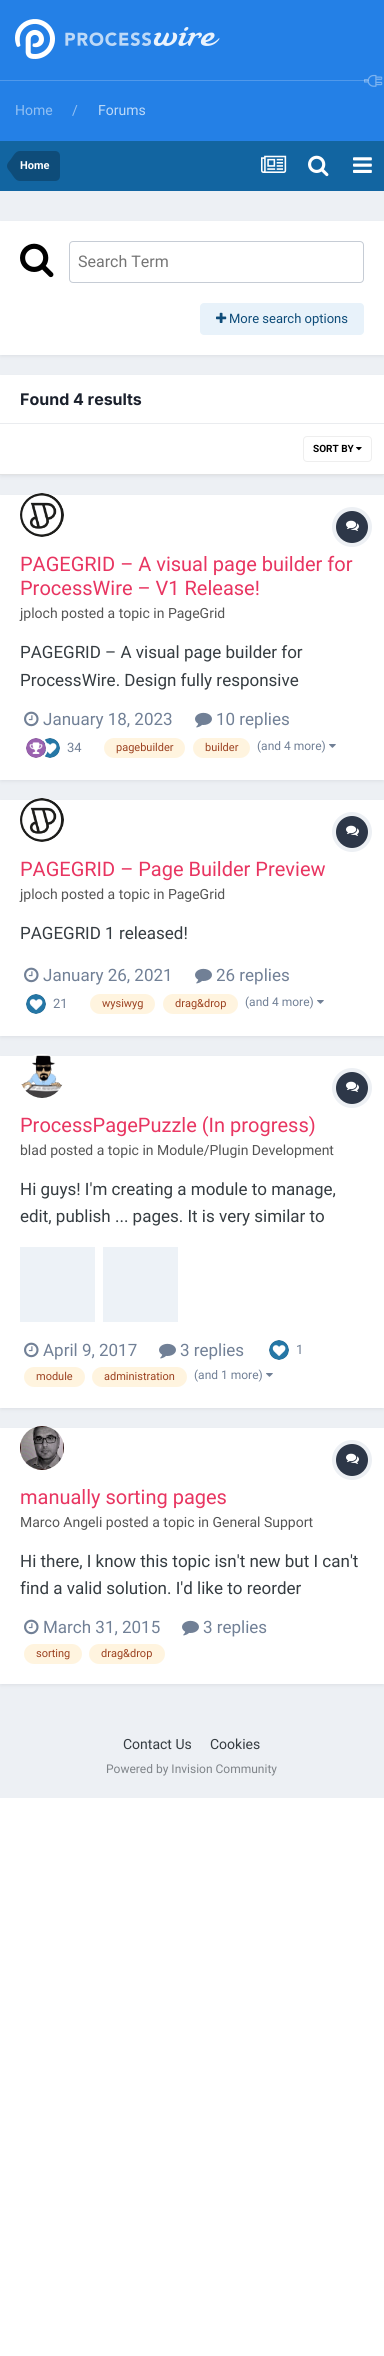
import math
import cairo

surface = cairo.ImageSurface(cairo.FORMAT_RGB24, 384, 2356)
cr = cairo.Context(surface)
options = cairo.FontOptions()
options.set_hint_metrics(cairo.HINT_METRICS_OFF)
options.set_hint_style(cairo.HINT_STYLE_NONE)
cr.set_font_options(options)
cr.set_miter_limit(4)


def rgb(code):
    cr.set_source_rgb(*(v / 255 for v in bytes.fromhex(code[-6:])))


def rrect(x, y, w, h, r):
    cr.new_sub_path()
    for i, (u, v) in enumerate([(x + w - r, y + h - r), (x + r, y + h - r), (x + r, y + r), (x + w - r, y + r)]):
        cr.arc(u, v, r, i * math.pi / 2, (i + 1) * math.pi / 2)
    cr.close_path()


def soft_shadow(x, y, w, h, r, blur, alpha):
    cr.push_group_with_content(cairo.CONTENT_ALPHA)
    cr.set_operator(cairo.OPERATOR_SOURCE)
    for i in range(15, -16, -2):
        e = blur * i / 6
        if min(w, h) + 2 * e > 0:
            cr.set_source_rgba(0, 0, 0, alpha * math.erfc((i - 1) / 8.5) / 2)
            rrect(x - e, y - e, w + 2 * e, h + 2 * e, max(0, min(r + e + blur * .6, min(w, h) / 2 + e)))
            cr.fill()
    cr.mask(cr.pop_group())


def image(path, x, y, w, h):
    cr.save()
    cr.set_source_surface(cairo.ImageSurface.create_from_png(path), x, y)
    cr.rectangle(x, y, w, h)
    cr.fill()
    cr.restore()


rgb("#ffffff")
cr.paint()
rgb("#edf0f4")
cr.rectangle(0, 191, 384, 1607)
cr.fill()
rgb("#2480e6")
cr.rectangle(0, 0, 384, 80)
cr.fill()
image("img/1.png", 15, 19, 40, 40)
image("img/2.png", 65, 27, 155, 19)
for x, y, w, h, color in [
    (0, 80, 369, 1, "#5099eb"),
    (369, 80, 15, 1, "#2480e6"),
    (0, 81, 384, 60, "#2480e6"),
]:
    rgb(color)
    cr.rectangle(x, y, w, h)
    cr.fill()
image("img/3.png", 364, 74, 19, 13)
rgb("#1265a1")
cr.rectangle(0, 141, 384, 50)
cr.fill()
rgb("#0e4c79")
cr.new_path()
cr.move_to(20, 151)
cr.line_to(55, 151)
cr.curve_to(58, 151, 60, 153, 60, 156)
cr.line_to(60, 176)
cr.curve_to(60, 179, 58, 181, 55, 181)
cr.line_to(20, 181)
cr.close_path()
cr.fill()
cr.new_path()
cr.move_to(20, 166)
cr.line_to(20, 181)
cr.curve_to(15.5, 181, 13.5, 176.5, 11, 173)
cr.curve_to(9.5, 171, 7, 169, 7, 166)
cr.close_path()
cr.move_to(20, 166)
cr.line_to(7, 166)
cr.curve_to(7, 163, 9.5, 161, 11, 159)
cr.curve_to(13.5, 155.5, 15.5, 151, 20, 151)
cr.close_path()
cr.fill()
image("img/4.png", 261, 155, 26, 18)
image("img/5.png", 308, 155, 21, 22)
image("img/6.png", 353, 157, 19, 16)
rgb("#2d3748")
soft_shadow(1, 224, 382, 132, 0, 2, 0.1)
rgb("#ffffff")
cr.rectangle(0, 221, 384, 134)
cr.fill()
image("img/7.png", 20, 243, 34, 35)
rrect(69.5, 241.5, 294, 41, 3.5)
rgb("#c6ccd5")
cr.set_line_width(1)
cr.stroke()
rgb("#e8f2fa")
rrect(200, 303, 164, 32, 4)
cr.fill()
image("img/8.png", 216, 312, 11, 11)
rgb("#2d3748")
soft_shadow(1, 378, 382, 98, 0, 2, 0.1)
for x, y, w, h, color in [
    (0, 375, 384, 99, "#ffffff"),
    (0, 423, 384, 1, "#eaecef"),
    (0, 474, 384, 1, "#e1e2e3"),
]:
    rgb(color)
    cr.rectangle(x, y, w, h)
    cr.fill()
image("img/9.png", 356, 447, 6, 4)
rrect(303.5, 436.5, 68, 25, 3.5)
rgb("#eeeeee")
cr.stroke()
rgb("#2d3748")
soft_shadow(1, 498, 382, 283, 0, 2, 0.1)
rgb("#ffffff")
cr.rectangle(0, 495, 384, 285)
cr.fill()
cr.arc(42, 515, 22, 0, 2 * math.pi)
cr.fill()
image("img/10.png", 20, 493, 44, 44)
cr.arc(352, 527, 18, 0, 2 * math.pi)
rgb("#edf0f4")
cr.set_line_width(4)
cr.stroke()
rgb("#2d3748")
cr.arc(352, 527, 16, 0, 2 * math.pi)
cr.fill()
image("img/11.png", 346, 520, 13, 11)
image("img/12.png", 24, 711, 15, 16)
image("img/13.png", 195, 712, 17, 16)
image("img/15.png", 42, 738, 18, 20)
cr.arc(36, 748, 11, 0, 2 * math.pi)
rgb("#ffffff")
cr.set_line_width(2)
cr.stroke()
image("img/14.png", 26, 738, 20, 20)
rgb("#fff4df")
rrect(104, 738, 81, 20, 10)
cr.fill()
rrect(193, 738, 57, 20, 10)
cr.fill()
image("img/16.png", 329, 744, 7, 4)
rgb("#2d3748")
soft_shadow(1, 803, 382, 234, 0, 2, 0.1)
rgb("#ffffff")
cr.rectangle(0, 800, 384, 236)
cr.fill()
cr.arc(42, 820, 22, 0, 2 * math.pi)
cr.fill()
image("img/17.png", 20, 798, 44, 44)
cr.arc(352, 832, 18, 0, 2 * math.pi)
rgb("#edf0f4")
cr.set_line_width(4)
cr.stroke()
rgb("#2d3748")
cr.arc(352, 832, 16, 0, 2 * math.pi)
cr.fill()
image("img/11.png", 346, 825, 13, 11)
image("img/12.png", 24, 967, 15, 16)
image("img/13.png", 195, 968, 17, 16)
image("img/18.png", 26, 994, 20, 20)
rgb("#fff4df")
rrect(90, 994, 65, 20, 10)
cr.fill()
rrect(163, 994, 75, 20, 10)
cr.fill()
image("img/16.png", 317, 1000, 7, 4)
rgb("#2d3748")
soft_shadow(1, 1059, 382, 350, 0, 2, 0.1)
rgb("#ffffff")
cr.rectangle(0, 1056, 384, 352)
cr.fill()
cr.arc(42, 1076, 22, 0, 2 * math.pi)
cr.fill()
image("img/19.png", 21, 1055, 42, 43)
cr.arc(352, 1088, 18, 0, 2 * math.pi)
rgb("#edf0f4")
cr.stroke()
rgb("#2d3748")
cr.arc(352, 1088, 16, 0, 2 * math.pi)
cr.fill()
image("img/11.png", 346, 1081, 13, 11)
rgb("#edf2f7")
cr.rectangle(20, 1247, 75, 75)
cr.fill()
cr.rectangle(103, 1247, 75, 75)
cr.fill()
image("img/12.png", 24, 1342, 15, 16)
image("img/13.png", 159, 1343, 17, 16)
image("img/18.png", 269, 1340, 20, 20)
rgb("#fff4df")
rrect(24, 1367, 61, 20, 10)
cr.fill()
rrect(92, 1367, 95, 20, 10)
cr.fill()
image("img/16.png", 266, 1373, 7, 4)
rgb("#2d3748")
soft_shadow(1, 1431, 382, 254, 0, 2, 0.1)
rgb("#ffffff")
cr.rectangle(0, 1428, 384, 256)
cr.fill()
cr.arc(42, 1448, 22, 0, 2 * math.pi)
cr.fill()
image("img/20.png", 20, 1426, 44, 44)
cr.arc(352, 1460, 18, 0, 2 * math.pi)
rgb("#edf0f4")
cr.stroke()
rgb("#2d3748")
cr.arc(352, 1460, 16, 0, 2 * math.pi)
cr.fill()
image("img/11.png", 346, 1453, 13, 11)
image("img/12.png", 24, 1619, 15, 16)
image("img/13.png", 182, 1620, 17, 16)
rgb("#fff4df")
rrect(24, 1644, 58, 20, 10)
cr.fill()
rrect(89, 1644, 76, 20, 10)
cr.fill()
cr.select_font_face("Roboto")
cr.set_font_size(14)
rgb("#92c0f3")
cr.move_to(15, 115)
cr.show_text("Home")
cr.move_to(72, 115)
cr.show_text("/")
rgb("#bdd9f8")
cr.move_to(98, 115)
cr.show_text("Forums")
cr.select_font_face("Roboto", cairo.FONT_SLANT_NORMAL, cairo.FONT_WEIGHT_BOLD)
cr.set_font_size(11)
rgb("#ffffff")
cr.move_to(20, 169)
cr.show_text("Home")
cr.select_font_face("Roboto")
cr.set_font_size(16)
rgb("#757575")
cr.move_to(78, 267)
cr.show_text("Search Term")
cr.set_font_size(13)
rgb("#0e4c79")
cr.move_to(229, 323)
cr.show_text("More search options")
cr.select_font_face("Inter", cairo.FONT_SLANT_NORMAL, cairo.FONT_WEIGHT_BOLD)
cr.set_font_size(16)
rgb("#1a202c")
cr.move_to(20, 405)
cr.show_text("Found 4 results")
cr.select_font_face("Roboto", cairo.FONT_SLANT_NORMAL, cairo.FONT_WEIGHT_BOLD)
cr.set_font_size(10)
rgb("#000000")
cr.move_to(313, 452)
cr.show_text("SORT BY")
cr.select_font_face("Roboto")
cr.set_font_size(20)
rgb("#e83561")
cr.move_to(20, 571)
cr.show_text("PAGEGRID – A visual page builder for")
cr.move_to(20, 595)
cr.show_text("ProcessWire – V1 Release!")
cr.set_font_size(14)
rgb("#555555")
cr.move_to(20, 618)
cr.show_text("jploch posted a topic in PageGrid")
cr.set_font_size(17)
rgb("#353c41")
cr.move_to(20, 658)
cr.show_text("PAGEGRID – A visual page builder for")
cr.move_to(20, 686)
cr.show_text("ProcessWire. Design fully responsive")
rgb("#718096")
cr.move_to(43, 725)
cr.show_text("January 18, 2023")
cr.move_to(216, 725)
cr.show_text("10 replies")
cr.set_font_size(13)
cr.move_to(67, 752)
cr.show_text("34")
cr.set_font_size(11)
rgb("#9c4221")
cr.move_to(116, 751)
cr.show_text("pagebuilder")
cr.move_to(205, 751)
cr.show_text("builder")
cr.set_font_size(12)
rgb("#718096")
cr.move_to(257, 750)
cr.show_text("(and 4 more)")
cr.set_font_size(20)
rgb("#e83561")
cr.move_to(20, 876)
cr.show_text("PAGEGRID – Page Builder Preview")
cr.set_font_size(14)
rgb("#555555")
cr.move_to(20, 899)
cr.show_text("jploch posted a topic in PageGrid")
cr.set_font_size(17)
rgb("#353c41")
cr.move_to(20, 939)
cr.show_text("PAGEGRID 1 released!")
rgb("#718096")
cr.move_to(43, 981)
cr.show_text("January 26, 2021")
cr.move_to(216, 981)
cr.show_text("26 replies")
cr.set_font_size(13)
cr.move_to(53, 1008)
cr.show_text("21")
cr.set_font_size(11)
rgb("#9c4221")
cr.move_to(102, 1007)
cr.show_text("wysiwyg")
cr.move_to(175, 1007)
cr.show_text("drag&drop")
cr.set_font_size(12)
rgb("#718096")
cr.move_to(245, 1006)
cr.show_text("(and 4 more)")
cr.set_font_size(20)
rgb("#e83561")
cr.move_to(20, 1132)
cr.show_text("ProcessPagePuzzle (In progress)")
cr.set_font_size(14)
rgb("#555555")
cr.move_to(20, 1155)
cr.show_text("blad posted a topic in Module/Plugin Development")
cr.set_font_size(17)
rgb("#353c41")
cr.move_to(20, 1195)
cr.show_text("Hi guys! I'm creating a module to manage,")
cr.move_to(20, 1222)
cr.show_text("edit, publish ... pages. It is very similar to")
rgb("#718096")
cr.move_to(43, 1356)
cr.show_text("April 9, 2017")
cr.move_to(180, 1356)
cr.show_text("3 replies")
cr.set_font_size(13)
cr.move_to(296, 1354)
cr.show_text("1")
cr.set_font_size(11)
rgb("#9c4221")
cr.move_to(36, 1380)
cr.show_text("module")
cr.move_to(104, 1380)
cr.show_text("administration")
cr.set_font_size(12)
rgb("#718096")
cr.move_to(194, 1379)
cr.show_text("(and 1 more)")
cr.set_font_size(20)
rgb("#e83561")
cr.move_to(20, 1504)
cr.show_text("manually sorting pages")
cr.set_font_size(14)
rgb("#555555")
cr.move_to(20, 1527)
cr.show_text("Marco Angeli posted a topic in General Support")
cr.set_font_size(17)
rgb("#353c41")
cr.move_to(20, 1567)
cr.show_text("Hi there, I know this topic isn't new but I can't")
cr.move_to(20, 1594)
cr.show_text("find a valid solution. I'd like to reorder")
rgb("#718096")
cr.move_to(43, 1633)
cr.show_text("March 31, 2015")
cr.move_to(203, 1633)
cr.show_text("3 replies")
cr.set_font_size(11)
rgb("#9c4221")
cr.move_to(36, 1657)
cr.show_text("sorting")
cr.move_to(101, 1657)
cr.show_text("drag&drop")
cr.set_font_size(14)
rgb("#353c41")
cr.move_to(123, 1749)
cr.show_text("Contact Us")
cr.move_to(210, 1749)
cr.show_text("Cookies")
cr.set_font_size(12)
rgb("#7f8489")
cr.move_to(106, 1773)
cr.show_text("Powered by Invision Community")
surface.write_to_png("page.png")
